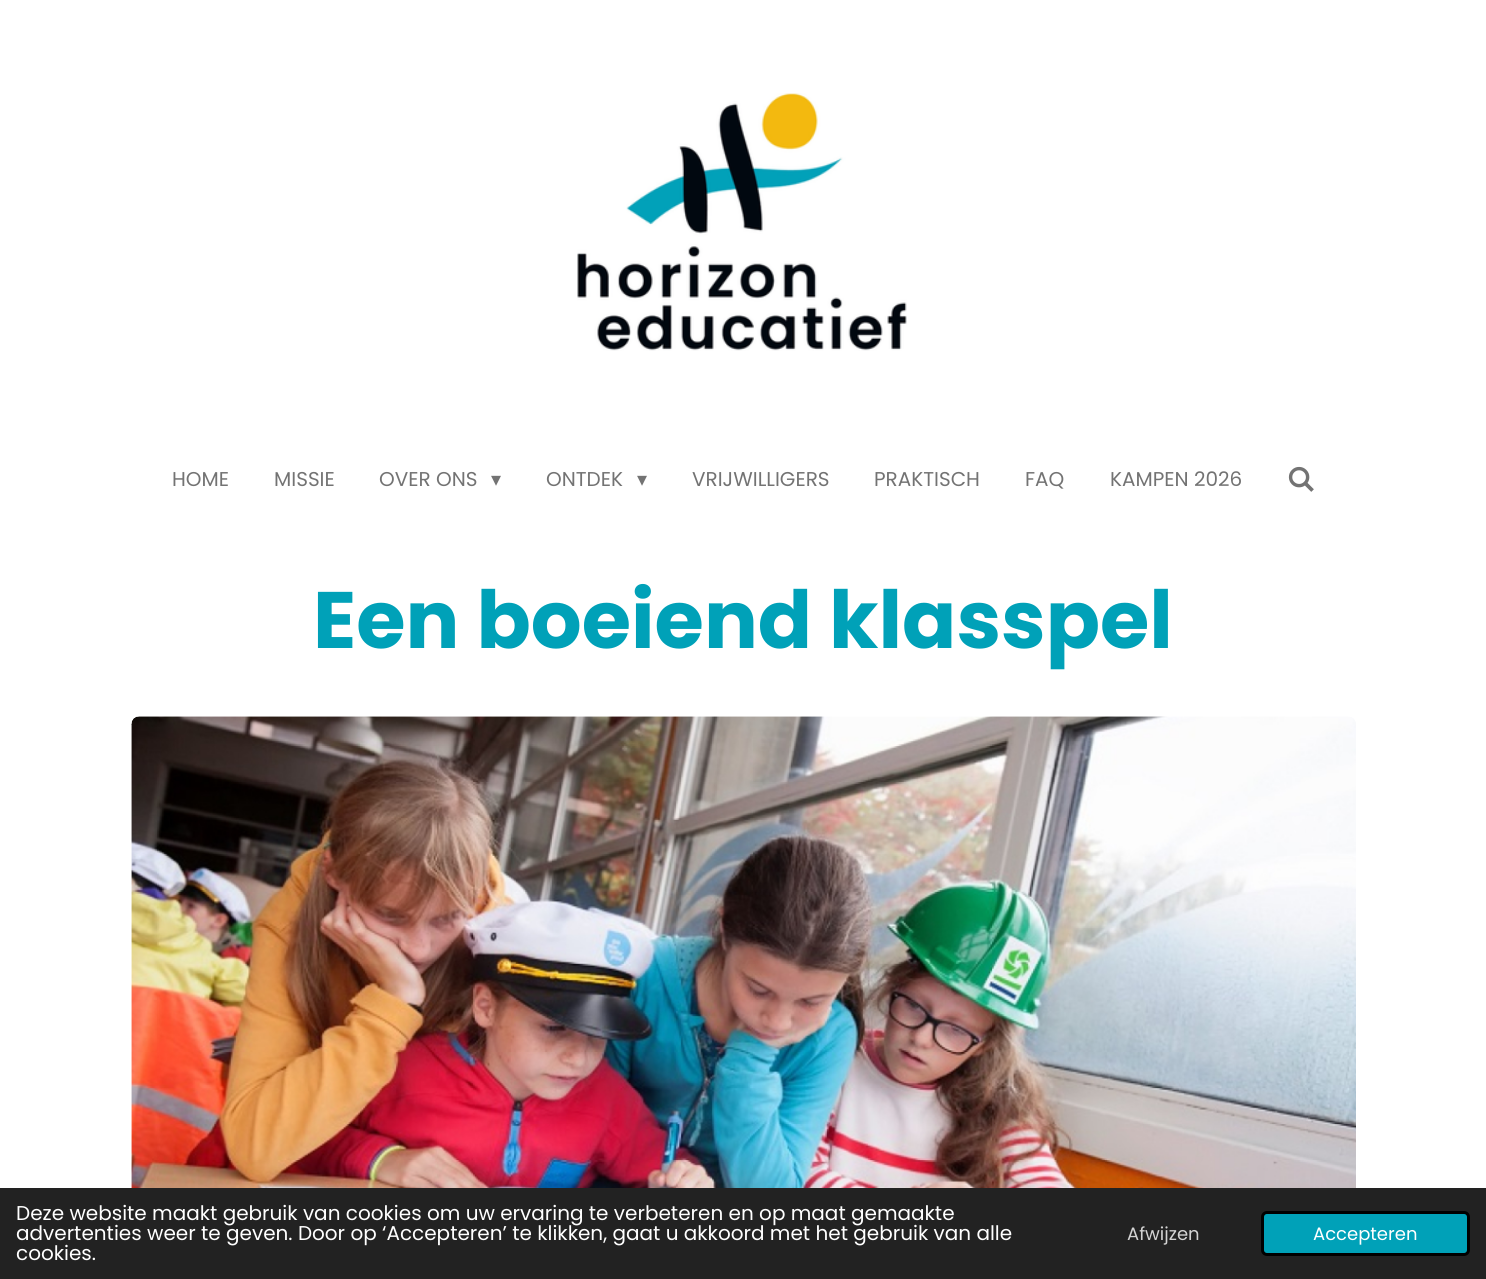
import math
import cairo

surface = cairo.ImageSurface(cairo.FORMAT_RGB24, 1486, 1279)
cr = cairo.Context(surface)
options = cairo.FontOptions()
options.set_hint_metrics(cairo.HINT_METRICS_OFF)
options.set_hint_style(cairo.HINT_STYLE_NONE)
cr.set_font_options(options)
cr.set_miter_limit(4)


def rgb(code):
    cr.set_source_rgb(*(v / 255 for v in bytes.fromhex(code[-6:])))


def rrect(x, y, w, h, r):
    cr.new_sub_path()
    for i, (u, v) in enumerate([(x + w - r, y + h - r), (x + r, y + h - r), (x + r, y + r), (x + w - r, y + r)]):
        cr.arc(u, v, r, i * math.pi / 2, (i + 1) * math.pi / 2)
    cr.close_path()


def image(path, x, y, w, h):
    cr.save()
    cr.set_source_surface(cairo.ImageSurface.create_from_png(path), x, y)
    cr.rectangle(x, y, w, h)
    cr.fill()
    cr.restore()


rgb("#ffffff")
cr.paint()
image("img/1.png", 577, 93, 330, 258)
image("img/2.png", 1288, 466, 26, 26)
image("img/3.png", 131, 716, 1225, 472)
rgb("#222222")
cr.rectangle(0, 1188, 1486, 91)
cr.fill()
rgb("#00a1b8")
rrect(1262.5, 1212.5, 206, 42, 4.5)
cr.fill_preserve()
rgb("#000000")
cr.set_line_width(3)
cr.stroke()
cr.select_font_face("Poppins")
cr.set_font_size(20)
rgb("#737373")
for x, y, s in [
    (172, 486, "HOME"),
    (274, 486, "MISSIE"),
    (379, 486, "OVER ONS"),
]:
    cr.move_to(x, y)
    cr.show_text(s)
cr.select_font_face("DejaVu Sans")
cr.move_to(491, 486)
cr.show_text("▾")
cr.select_font_face("Poppins")
cr.move_to(546, 486)
cr.show_text("ONTDEK")
cr.select_font_face("DejaVu Sans")
cr.move_to(637, 486)
cr.show_text("▾")
cr.select_font_face("Poppins")
for x, y, s in [
    (692, 486, "VRIJWILLIGERS"),
    (874, 486, "PRAKTISCH"),
    (1025, 486, "FAQ"),
    (1110, 486, "KAMPEN 2026"),
]:
    cr.move_to(x, y)
    cr.show_text(s)
cr.select_font_face("Poppins", cairo.FONT_SLANT_NORMAL, cairo.FONT_WEIGHT_BOLD)
cr.set_font_size(80)
rgb("#00a1b8")
cr.move_to(313, 648)
cr.show_text("Een boeiend klasspel")
cr.select_font_face("Poppins")
cr.set_font_size(20)
rgb("#ffffff")
for x, y, s in [
    (16, 1220, "Deze website maakt gebruik van cookies om uw ervaring te verbeteren en op maat gemaakte"),
    (16, 1240, "advertenties weer te geven. Door op ‘Accepteren’ te klikken, gaat u akkoord met het gebruik van alle"),
    (16, 1260, "cookies."),
]:
    cr.move_to(x, y)
    cr.show_text(s)
cr.set_font_size(18)
rgb("#d3d3d3")
cr.move_to(1127, 1240)
cr.show_text("Afwijzen")
rgb("#ffffff")
cr.move_to(1313, 1240)
cr.show_text("Accepteren")
surface.write_to_png("page.png")
